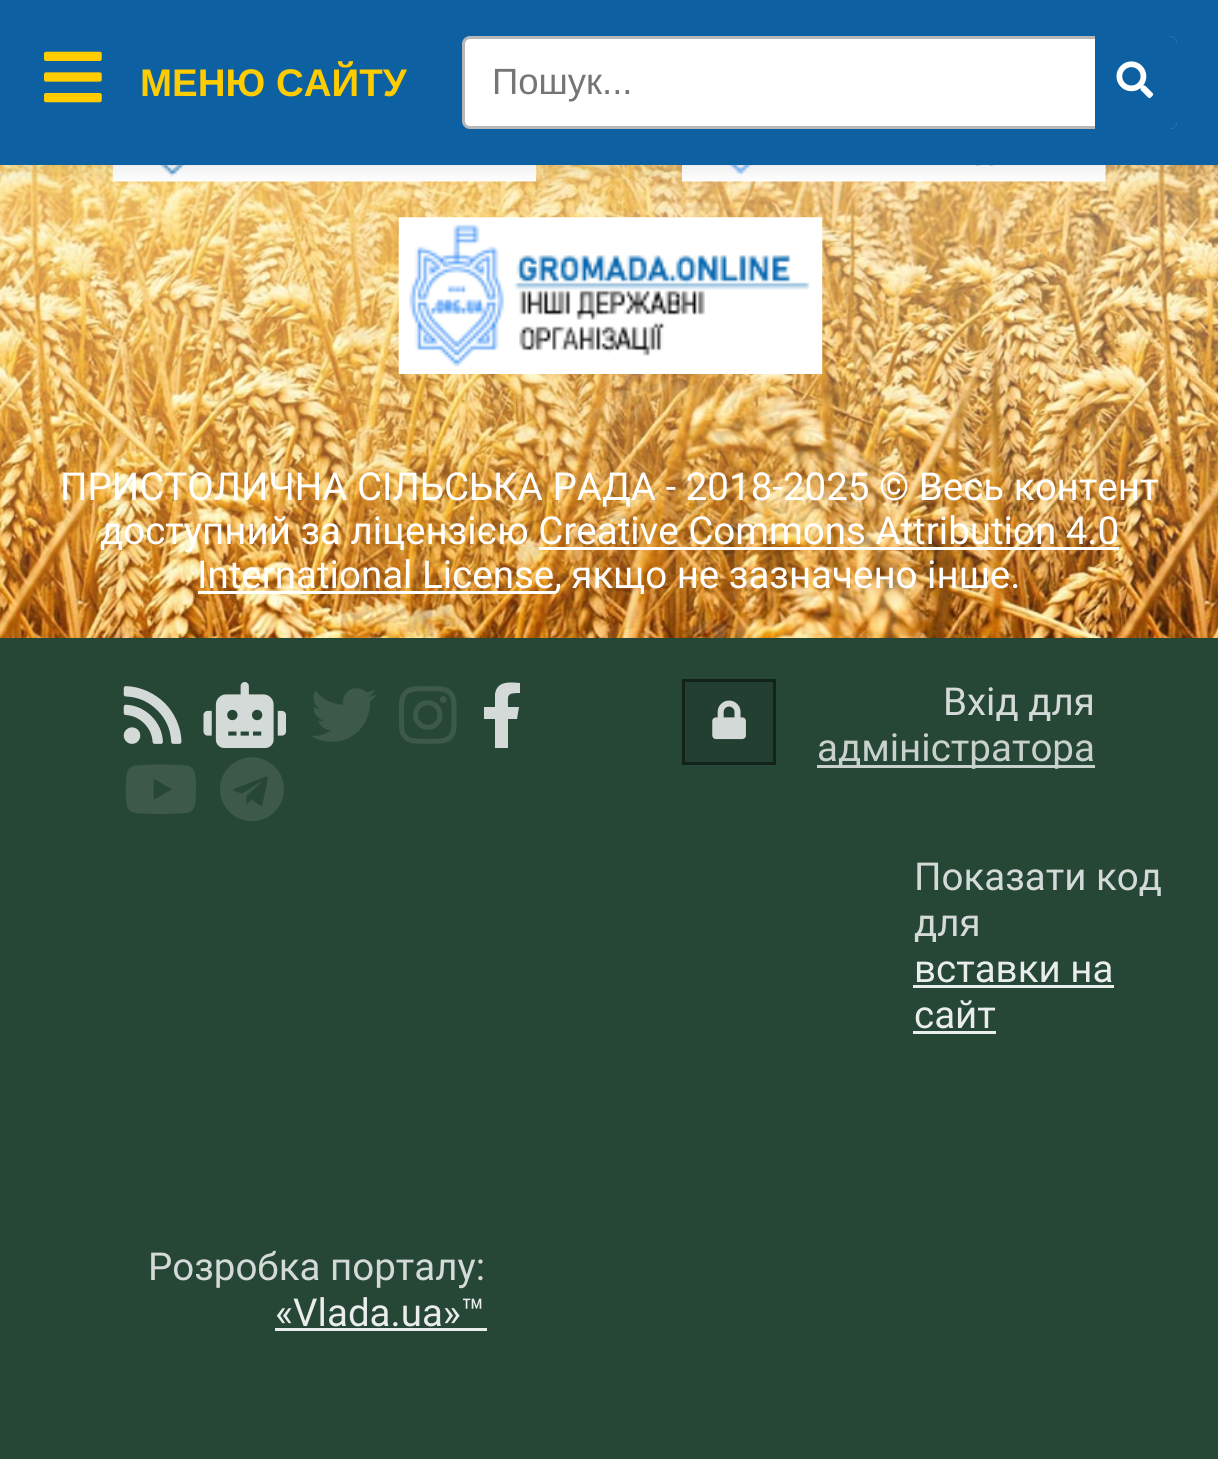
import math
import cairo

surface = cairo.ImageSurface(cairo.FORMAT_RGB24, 1218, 1459)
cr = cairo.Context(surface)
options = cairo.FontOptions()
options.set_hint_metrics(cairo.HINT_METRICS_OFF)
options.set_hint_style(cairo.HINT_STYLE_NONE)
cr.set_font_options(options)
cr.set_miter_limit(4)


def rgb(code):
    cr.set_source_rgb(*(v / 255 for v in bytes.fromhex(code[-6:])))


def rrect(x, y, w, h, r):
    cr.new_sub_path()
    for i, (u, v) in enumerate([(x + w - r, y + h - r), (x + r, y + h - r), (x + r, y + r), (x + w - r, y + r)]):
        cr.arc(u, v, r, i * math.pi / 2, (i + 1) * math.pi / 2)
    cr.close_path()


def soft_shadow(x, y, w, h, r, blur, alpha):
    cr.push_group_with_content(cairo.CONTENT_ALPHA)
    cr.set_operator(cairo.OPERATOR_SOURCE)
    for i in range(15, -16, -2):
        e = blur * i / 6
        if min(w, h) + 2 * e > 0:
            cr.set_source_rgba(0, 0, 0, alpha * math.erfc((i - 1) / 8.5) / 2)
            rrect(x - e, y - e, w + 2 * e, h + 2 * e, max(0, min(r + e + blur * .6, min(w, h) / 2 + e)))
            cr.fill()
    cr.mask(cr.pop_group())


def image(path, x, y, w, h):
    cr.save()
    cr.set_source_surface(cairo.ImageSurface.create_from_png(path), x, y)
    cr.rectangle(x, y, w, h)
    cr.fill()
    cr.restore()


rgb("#ffffff")
cr.paint()
image("img/3.png", 0, 165, 1218, 473)
image("img/4.png", 112, 165, 425, 17)
image("img/5.png", 682, 165, 424, 17)
rgb("#000000")
soft_shadow(0, 3, 1218, 165, 0, 9.5, 0.1)
rgb("#0d61a2")
cr.rectangle(0, 0, 1218, 165)
cr.fill()
image("img/1.png", 44, 51, 58, 52)
rgb("#ffffff")
rrect(463.5, 37.5, 712, 90, 6.5)
cr.fill_preserve()
rgb("#b7b7b7")
cr.set_line_width(3)
cr.stroke()
rgb("#0d61a2")
cr.new_path()
cr.move_to(1095, 36)
cr.line_to(1169, 36)
cr.curve_to(1173.5, 36, 1177, 39.5, 1177, 44)
cr.line_to(1177, 121)
cr.curve_to(1177, 125.5, 1173.5, 129, 1169, 129)
cr.line_to(1095, 129)
cr.close_path()
cr.fill()
image("img/2.png", 1116, 61, 38, 38)
image("img/6.png", 398, 217, 425, 157)
for x, y, w, h, color in [
    (539, 547, 580, 3, "#ffffff"),
    (198, 591, 358, 3, "#ffffff"),
    (0, 638, 1218, 821, "#264636"),
]:
    rgb(color)
    cr.rectangle(x, y, w, h)
    cr.fill()
image("img/7.png", 123, 686, 59, 58)
image("img/8.png", 203, 682, 83, 66)
image("img/9.png", 312, 688, 64, 54)
image("img/10.png", 399, 686, 58, 58)
rgb("#d4dad7")
cr.new_path()
cr.move_to(517, 719)
cr.line_to(508, 719)
cr.line_to(508, 748)
cr.line_to(495, 748)
cr.line_to(495, 719)
cr.line_to(484, 719)
cr.line_to(484, 707)
cr.line_to(495, 707)
cr.line_to(495, 694)
cr.curve_to(497, 681, 509, 682, 520, 683)
cr.line_to(520, 693)
cr.curve_to(506, 693, 508, 695, 508, 707)
cr.line_to(519, 707)
cr.close_path()
cr.fill()
image("img/11.png", 125, 764, 71, 50)
image("img/12.png", 220, 757, 64, 64)
rgb("#223f31")
cr.rectangle(683.5, 680.5, 91, 83)
cr.fill_preserve()
rgb("#13231b")
cr.stroke()
image("img/13.png", 712, 700, 34, 40)
for x, y, w, h, color in [
    (817, 765, 278, 3, "#c9d1cd"),
    (913, 985, 201, 3, "#e9edeb"),
    (913, 1031, 83, 3, "#e9edeb"),
    (275, 1328, 212, 3, "#e9edeb"),
]:
    rgb(color)
    cr.rectangle(x, y, w, h)
    cr.fill()
cr.select_font_face("Liberation Sans", cairo.FONT_SLANT_NORMAL, cairo.FONT_WEIGHT_BOLD)
cr.set_font_size(38.5)
rgb("#ffcc00")
cr.move_to(140, 96)
cr.show_text("МЕНЮ САЙТУ")
cr.select_font_face("Liberation Sans")
cr.set_font_size(36.5)
rgb("#757575")
cr.move_to(492, 94)
cr.show_text("Пошук...")
cr.select_font_face("Roboto")
cr.set_font_size(38.5)
rgb("#ffffff")
for x, y, s in [
    (60, 500, "ПРИСТОЛИЧНА СІЛЬСЬКА РАДА - 2018-2025 © Весь контент"),
    (100, 544, "доступний за ліцензією Creative Commons Attribution 4.0"),
    (197, 588, "International License, якщо не зазначено інше."),
]:
    cr.move_to(x, y)
    cr.show_text(s)
rgb("#d4dad7")
cr.move_to(943, 715)
cr.show_text("Вхід для")
rgb("#c9d1cd")
cr.move_to(817, 761)
cr.show_text("адміністратора")
rgb("#d4dad7")
cr.move_to(914, 890)
cr.show_text("Показати код")
cr.move_to(914, 936)
cr.show_text("для")
rgb("#e9edeb")
cr.move_to(914, 982)
cr.show_text("вставки на")
cr.move_to(914, 1028)
cr.show_text("сайт")
rgb("#d4dad7")
cr.move_to(148, 1280)
cr.show_text("Розробка порталу:")
rgb("#e9edeb")
cr.move_to(275, 1326)
cr.show_text("«Vlada.ua»™")
surface.write_to_png("page.png")
